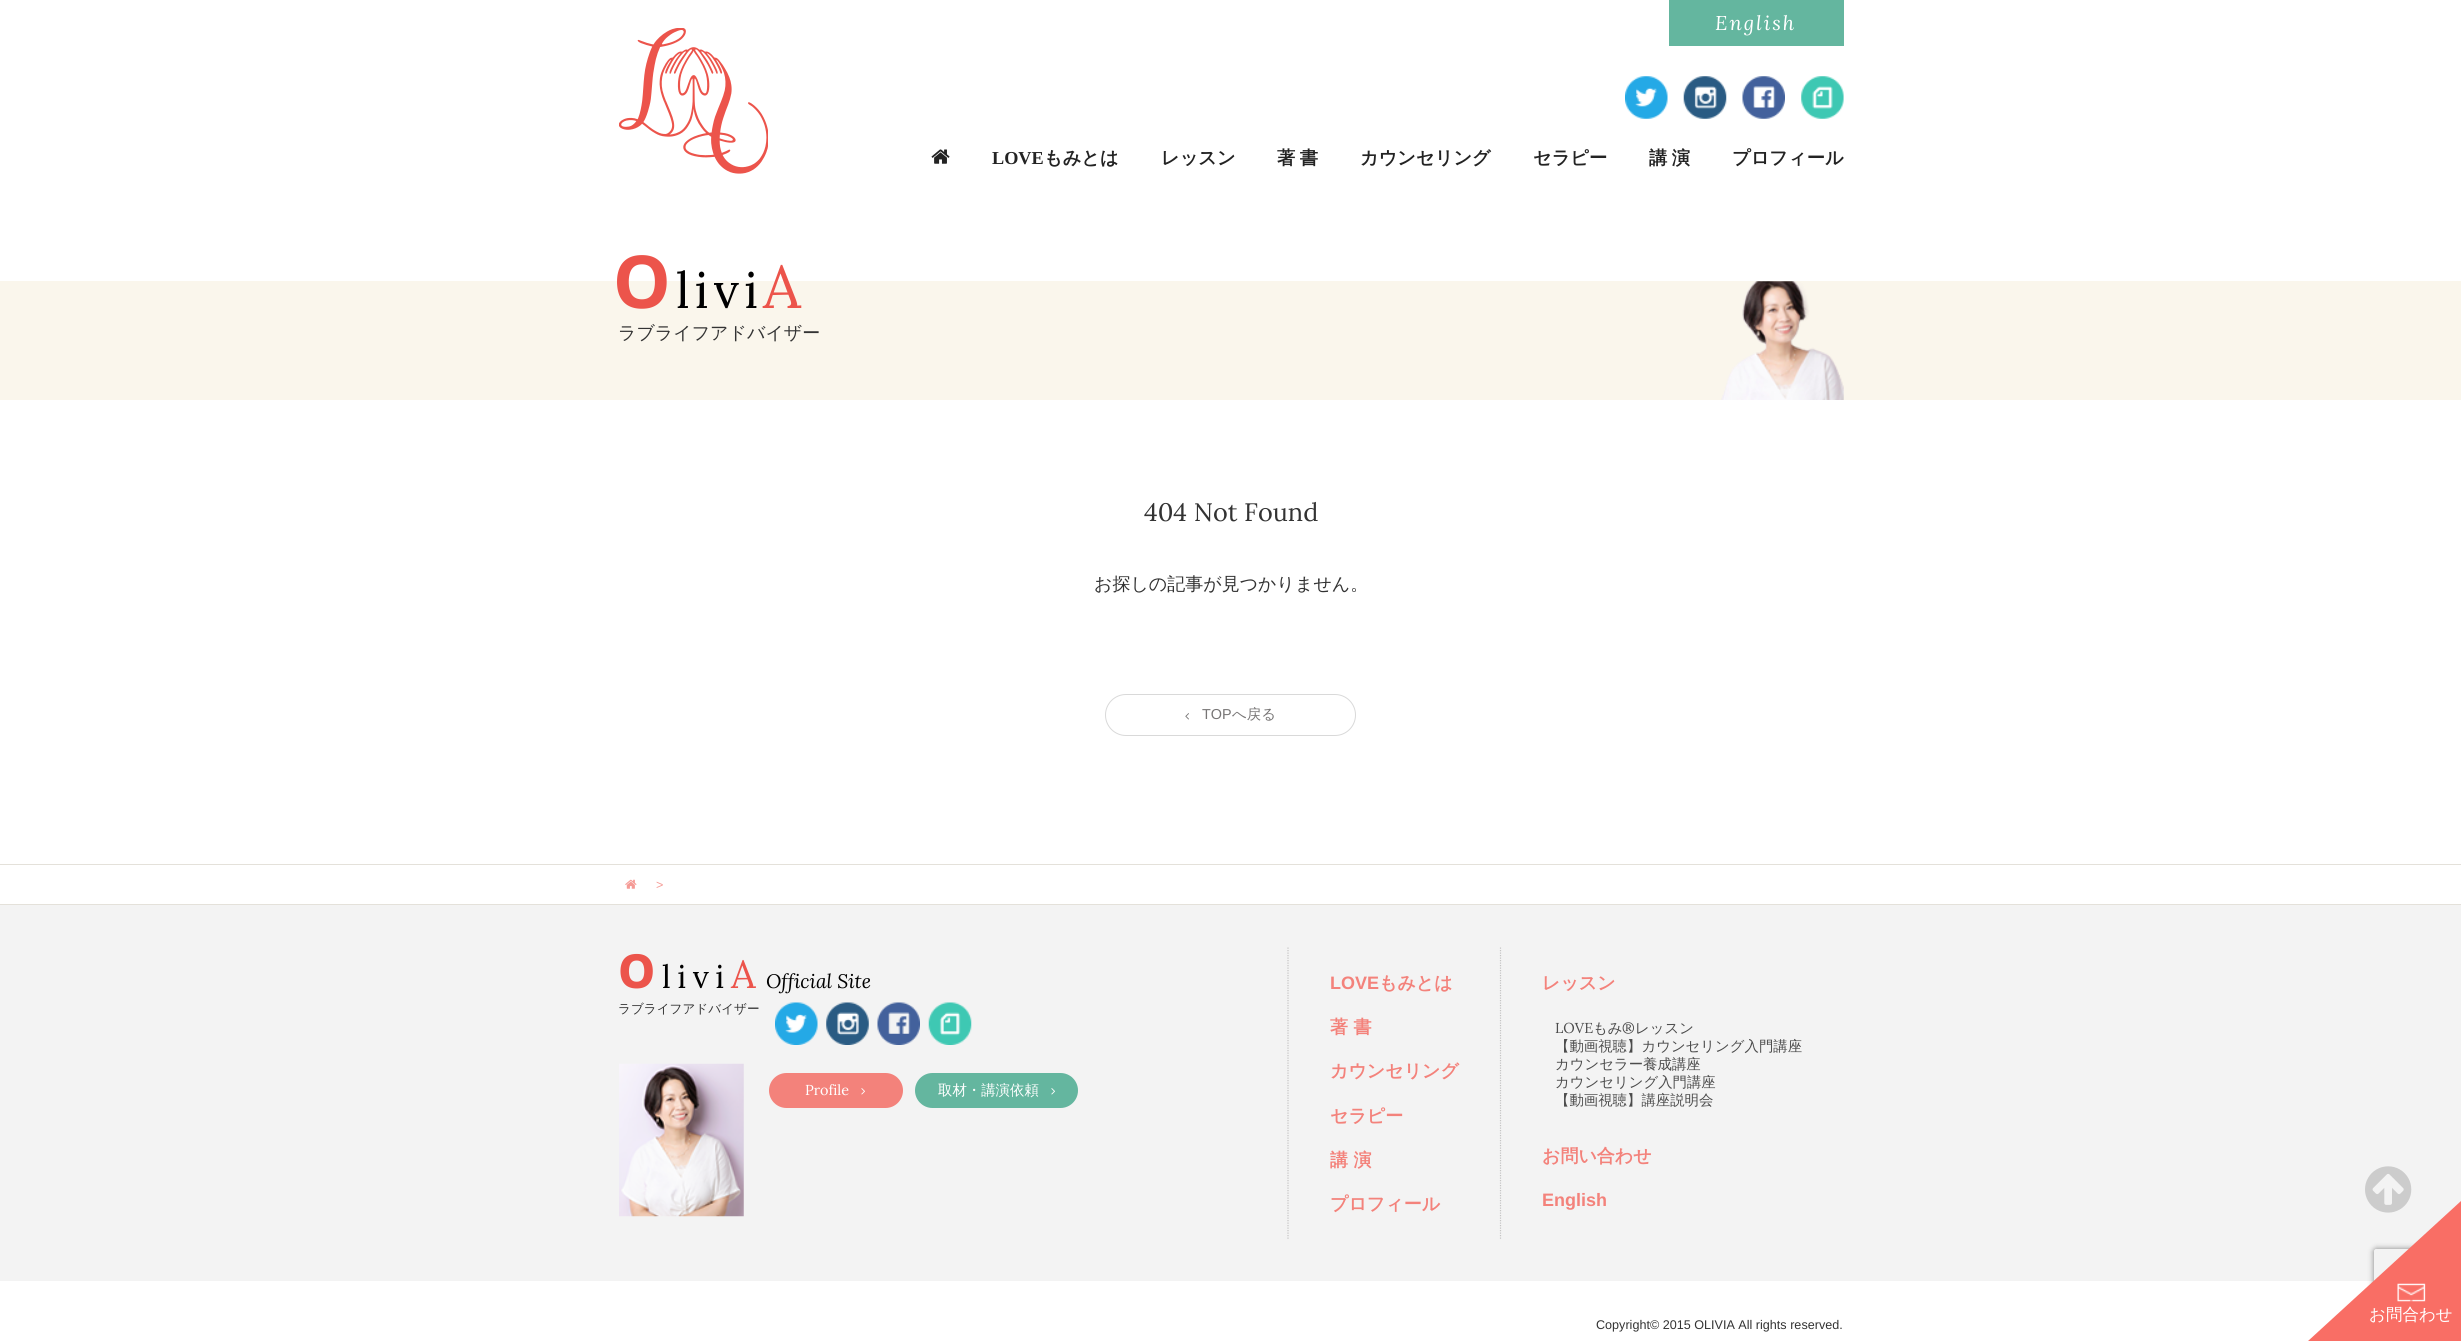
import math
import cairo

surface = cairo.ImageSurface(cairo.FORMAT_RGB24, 2461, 1341)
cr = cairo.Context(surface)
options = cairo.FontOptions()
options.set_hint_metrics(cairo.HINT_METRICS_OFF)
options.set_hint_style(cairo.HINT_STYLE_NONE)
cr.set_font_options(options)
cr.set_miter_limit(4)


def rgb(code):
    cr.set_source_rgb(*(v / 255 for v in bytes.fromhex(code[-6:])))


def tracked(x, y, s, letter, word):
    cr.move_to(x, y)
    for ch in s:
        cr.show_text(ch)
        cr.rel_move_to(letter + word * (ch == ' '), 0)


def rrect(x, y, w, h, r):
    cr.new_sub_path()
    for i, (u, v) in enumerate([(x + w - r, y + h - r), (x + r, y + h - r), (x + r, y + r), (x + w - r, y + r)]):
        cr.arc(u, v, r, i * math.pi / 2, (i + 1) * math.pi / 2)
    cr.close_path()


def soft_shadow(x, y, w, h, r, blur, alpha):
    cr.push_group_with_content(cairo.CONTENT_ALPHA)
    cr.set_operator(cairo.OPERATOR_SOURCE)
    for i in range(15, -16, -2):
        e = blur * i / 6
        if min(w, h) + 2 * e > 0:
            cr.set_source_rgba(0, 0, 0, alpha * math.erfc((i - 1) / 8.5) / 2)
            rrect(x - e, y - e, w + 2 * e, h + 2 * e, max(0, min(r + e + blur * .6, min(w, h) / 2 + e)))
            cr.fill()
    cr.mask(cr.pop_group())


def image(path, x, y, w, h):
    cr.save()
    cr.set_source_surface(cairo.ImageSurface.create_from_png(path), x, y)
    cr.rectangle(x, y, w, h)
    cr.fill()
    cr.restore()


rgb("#ffffff")
cr.paint()
rgb("#faf6ec")
cr.rectangle(0, 281, 2461, 119)
cr.fill()
image("img/1.png", 1721, 281, 123, 119)
image("img/2.png", 619, 28, 149, 146)
rgb("#64b69f")
cr.rectangle(1669, 0, 175, 46)
cr.fill()
image("img/3.png", 1625, 76, 43, 43)
image("img/4.png", 1683, 76, 44, 43)
image("img/5.png", 1742, 76, 43, 43)
image("img/6.png", 1801, 76, 43, 43)
image("img/7.png", 931, 149, 19, 15)
rgb("#f3f3f3")
cr.rectangle(0, 905, 2461, 376)
cr.fill()
image("img/18.png", 2365, 1166, 47, 47)
cr.save()
cr.set_fill_rule(cairo.FILL_RULE_EVEN_ODD)
cr.new_path()
cr.move_to(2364, 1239)
cr.line_to(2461, 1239)
cr.line_to(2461, 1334)
cr.line_to(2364, 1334)
cr.close_path()
cr.move_to(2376.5, 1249)
cr.line_to(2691.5, 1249)
cr.curve_to(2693, 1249, 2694, 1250, 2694, 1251.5)
cr.line_to(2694, 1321.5)
cr.curve_to(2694, 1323, 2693, 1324, 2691.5, 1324)
cr.line_to(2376.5, 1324)
cr.curve_to(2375, 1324, 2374, 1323, 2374, 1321.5)
cr.line_to(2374, 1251.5)
cr.curve_to(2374, 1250, 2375, 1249, 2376.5, 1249)
cr.close_path()
cr.clip()
rgb("#808080")
soft_shadow(2374, 1249, 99, 75, 2.5, 3, 1)
cr.restore()
rgb("#f96e65")
cr.new_path()
cr.move_to(2461, 1201)
cr.line_to(2461, 1341)
cr.line_to(2308, 1341)
cr.close_path()
cr.fill()
image("img/8.png", 2397, 1283, 29, 19)
rrect(1105.5, 694.5, 250, 41, 20.5)
rgb("#d9d9d9")
cr.set_line_width(1)
cr.stroke()
image("img/9.png", 1185, 713, 4, 7)
rgb("#e4e1da")
cr.rectangle(0, 864, 2461, 1)
cr.fill()
cr.rectangle(0, 904, 2461, 1)
cr.fill()
image("img/10.png", 625, 879, 12, 10)
image("img/11.png", 775, 1002, 43, 43)
image("img/12.png", 826, 1002, 43, 43)
image("img/13.png", 877, 1002, 43, 43)
image("img/14.png", 928, 1002, 44, 43)
image("img/15.png", 619, 1063, 125, 154)
rgb("#f3827b")
rrect(769, 1073, 134, 35, 17.5)
cr.fill()
image("img/16.png", 861, 1088, 4, 7)
rgb("#64b69f")
rrect(915, 1073, 163, 35, 17.5)
cr.fill()
image("img/17.png", 1051, 1088, 4, 7)
cr.new_path()
cr.move_to(1288, 947.5)
cr.line_to(1288, 1239)
rgb("#c5c4c4")
cr.set_line_width(1.2)
cr.set_dash([1.25, 1.25])
cr.stroke()
cr.new_path()
cr.move_to(1500.5, 947.5)
cr.line_to(1500.5, 1239)
cr.stroke()
cr.select_font_face("Noto Sans", cairo.FONT_SLANT_NORMAL, cairo.FONT_WEIGHT_BOLD)
cr.set_font_size(73)
rgb("#ec544b")
tracked(613, 308, "O", 5, 0)
cr.select_font_face("Lora")
cr.set_font_size(50)
rgb("#000000")
tracked(676, 308, "livi", 5, 0)
cr.set_font_size(60)
rgb("#ec544b")
tracked(763, 308, "A", 5, 0)
cr.select_font_face("WenQuanYi Zen Hei Medium")
cr.set_font_size(18)
rgb("#333333")
cr.move_to(618, 339)
cr.show_text("ラブライフアドバイザー")
cr.select_font_face("Lora", cairo.FONT_SLANT_ITALIC)
cr.set_font_size(20)
rgb("#ffffff")
tracked(1715, 30, "English", 2, 0)
cr.select_font_face("Liberation Serif", cairo.FONT_SLANT_NORMAL, cairo.FONT_WEIGHT_BOLD)
cr.set_font_size(18.25)
rgb("#232323")
cr.move_to(992, 164)
cr.show_text("LOVE")
cr.select_font_face("WenQuanYi Zen Hei", cairo.FONT_SLANT_NORMAL, cairo.FONT_WEIGHT_BOLD)
cr.move_to(1044, 164)
cr.show_text("もみとは")
cr.move_to(1161, 164)
cr.show_text("レッスン")
tracked(1277, 164, "著 書", 0, -1)
cr.move_to(1360, 164)
cr.show_text("カウンセリング")
cr.move_to(1533, 164)
cr.show_text("セラピー")
tracked(1649, 164, "講 演", 0, -1)
cr.move_to(1732, 164)
cr.show_text("プロフィール")
cr.select_font_face("WenQuanYi Zen Hei Medium")
cr.set_font_size(16.5)
rgb("#ffffff")
cr.move_to(2369, 1320)
cr.show_text("お問合わせ")
cr.select_font_face("Lora")
cr.set_font_size(25.25)
rgb("#333333")
cr.move_to(1144, 521)
cr.show_text("404 Not Found")
cr.select_font_face("WenQuanYi Zen Hei Medium")
cr.set_font_size(18)
cr.move_to(1094, 590)
cr.show_text("お探しの記事が見つかりません。")
cr.select_font_face("Liberation Sans")
cr.set_font_size(14.4)
rgb("#777575")
cr.move_to(1202, 719)
cr.show_text("TOP")
cr.select_font_face("WenQuanYi Zen Hei Medium")
cr.move_to(1232, 719)
cr.show_text("へ戻る")
cr.select_font_face("Liberation Sans")
cr.set_font_size(12.6)
rgb("#f59b96")
cr.move_to(656, 889)
cr.show_text(">")
cr.select_font_face("Noto Sans ExtraBold")
cr.set_font_size(47)
rgb("#ec544b")
tracked(618, 988, "O", 6.5, 0)
cr.select_font_face("Lora")
cr.set_font_size(32)
rgb("#000000")
tracked(662, 988, "livi", 6.5, 0)
cr.set_font_size(39)
rgb("#ec544b")
tracked(731, 988, "A", 6.5, 0)
cr.select_font_face("Lora", cairo.FONT_SLANT_ITALIC)
cr.set_font_size(19.5)
rgb("#000000")
cr.move_to(766, 988)
cr.show_text("Official Site")
cr.select_font_face("WenQuanYi Zen Hei Medium")
cr.set_font_size(12.6)
rgb("#333333")
cr.move_to(618, 1013)
cr.show_text("ラブライフアドバイザー")
cr.select_font_face("Lora")
cr.set_font_size(14.4)
rgb("#ffffff")
cr.move_to(805, 1095)
cr.show_text("Profile")
cr.select_font_face("WenQuanYi Zen Hei Medium")
cr.move_to(938, 1095)
cr.show_text("取材・講演依頼")
cr.select_font_face("Liberation Sans", cairo.FONT_SLANT_NORMAL, cairo.FONT_WEIGHT_BOLD)
cr.set_font_size(18)
rgb("#f3827b")
cr.move_to(1330, 989)
cr.show_text("LOVE")
cr.select_font_face("WenQuanYi Zen Hei", cairo.FONT_SLANT_NORMAL, cairo.FONT_WEIGHT_BOLD)
for x, y, s in [
    (1379, 989, "もみとは"),
    (1330, 1033, "著 書"),
    (1330, 1077, "カウンセリング"),
    (1330, 1122, "セラピー"),
    (1330, 1166, "講 演"),
    (1330, 1210, "プロフィール"),
    (1542, 989, "レッスン"),
]:
    cr.move_to(x, y)
    cr.show_text(s)
cr.select_font_face("Lora")
cr.set_font_size(14.4)
rgb("#4c4c4c")
cr.move_to(1555, 1033)
cr.show_text("LOVE")
cr.select_font_face("WenQuanYi Zen Hei Medium")
cr.move_to(1593, 1033)
cr.show_text("もみ")
cr.select_font_face("Lora")
cr.move_to(1622, 1033)
cr.show_text("®")
cr.select_font_face("WenQuanYi Zen Hei Medium")
for x, y, s in [
    (1635, 1033, "レッスン"),
    (1555, 1051, "【動画視聴】カウンセリング入門講座"),
    (1555, 1069, "カウンセラー養成講座"),
    (1555, 1087, "カウンセリング入門講座"),
    (1555, 1105, "【動画視聴】講座説明会"),
]:
    cr.move_to(x, y)
    cr.show_text(s)
cr.select_font_face("WenQuanYi Zen Hei", cairo.FONT_SLANT_NORMAL, cairo.FONT_WEIGHT_BOLD)
cr.set_font_size(18)
rgb("#f3827b")
cr.move_to(1542, 1162)
cr.show_text("お問い合わせ")
cr.select_font_face("Liberation Sans", cairo.FONT_SLANT_NORMAL, cairo.FONT_WEIGHT_BOLD)
cr.move_to(1542, 1206)
cr.show_text("English")
cr.select_font_face("Liberation Sans")
cr.set_font_size(12.6)
rgb("#333333")
cr.move_to(1596, 1329)
cr.show_text("Copyright© 2015 OLIVIA All rights reserved.")
surface.write_to_png("page.png")
